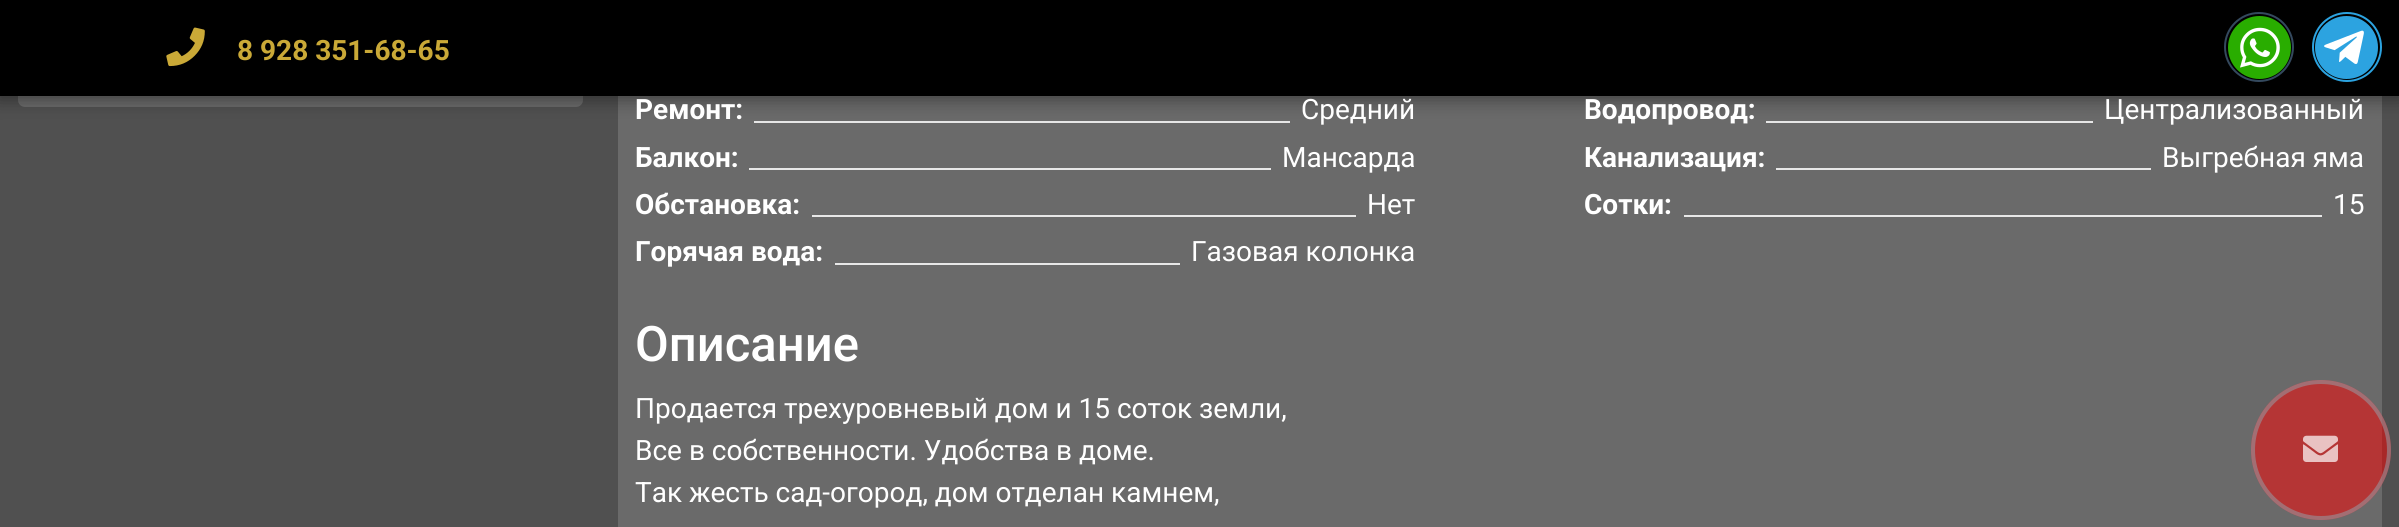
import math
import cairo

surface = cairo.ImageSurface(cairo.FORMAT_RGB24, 2399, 527)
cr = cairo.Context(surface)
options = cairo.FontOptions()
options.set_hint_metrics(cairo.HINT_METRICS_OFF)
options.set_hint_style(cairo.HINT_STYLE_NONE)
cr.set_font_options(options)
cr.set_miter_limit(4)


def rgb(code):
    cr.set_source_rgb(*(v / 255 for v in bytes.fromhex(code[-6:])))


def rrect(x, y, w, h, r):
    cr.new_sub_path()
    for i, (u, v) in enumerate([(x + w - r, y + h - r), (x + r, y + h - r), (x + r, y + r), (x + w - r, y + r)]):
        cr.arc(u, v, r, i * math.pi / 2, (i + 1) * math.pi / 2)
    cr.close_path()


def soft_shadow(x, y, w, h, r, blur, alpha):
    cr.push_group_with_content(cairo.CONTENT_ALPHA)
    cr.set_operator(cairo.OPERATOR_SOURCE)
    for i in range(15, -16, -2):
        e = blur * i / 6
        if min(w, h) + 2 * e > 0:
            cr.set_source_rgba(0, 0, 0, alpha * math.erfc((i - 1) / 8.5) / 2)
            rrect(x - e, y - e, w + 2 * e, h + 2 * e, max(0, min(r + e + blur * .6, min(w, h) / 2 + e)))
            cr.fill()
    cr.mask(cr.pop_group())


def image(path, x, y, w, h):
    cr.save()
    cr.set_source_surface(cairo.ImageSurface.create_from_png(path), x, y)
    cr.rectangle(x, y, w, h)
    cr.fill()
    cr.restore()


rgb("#505050")
cr.paint()
rgb("#6a6a6a")
rrect(18, -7, 565, 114, 7)
cr.fill()
for x, y, w, h, color in [
    (618, 96, 1764, 431, "#6a6a6a"),
    (754, 121, 536, 2, "#e7e7e7"),
    (1766, 121, 327, 2, "#e7e7e7"),
]:
    rgb(color)
    cr.rectangle(x, y, w, h)
    cr.fill()
rgb("#000000")
soft_shadow(-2, 0, 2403, 100, 0, 9, 0.4)
rgb("#000000")
cr.rectangle(0, 0, 2399, 96)
cr.fill()
image("img/1.png", 166, 27, 39, 40)
cr.arc(2259, 47, 34, 0, 2 * math.pi)
rgb("#34495e")
cr.stroke()
rgb("#29ad00")
cr.arc(2259.5, 47.5, 31.5, 0, 2 * math.pi)
cr.fill()
image("img/2.png", 2240, 27, 40, 41)
cr.arc(2347, 47, 34, 0, 2 * math.pi)
rgb("#2ca3e0")
cr.stroke()
cr.arc(2346.5, 47.5, 31.5, 0, 2 * math.pi)
cr.fill()
image("img/3.png", 2324, 30, 40, 34)
for x, y, w, h, color in [
    (749, 168, 522, 2, "#e7e7e7"),
    (1776, 168, 375, 2, "#e7e7e7"),
    (812, 215, 544, 2, "#e7e7e7"),
    (1684, 215, 638, 2, "#e7e7e7"),
    (835, 263, 345, 2, "#e7e7e7"),
]:
    rgb(color)
    cr.rectangle(x, y, w, h)
    cr.fill()
cr.set_source_rgba(1, 0, 0, 0.5)
cr.arc(2321, 450, 70, 0, 2 * math.pi)
cr.fill()
cr.arc(2321, 450, 68, 0, 2 * math.pi)
cr.set_source_rgba(0.576, 0.659, 0.698, 0.5)
cr.set_line_width(4)
cr.stroke()
image("img/4.png", 2303, 435, 35, 27)
cr.select_font_face("Roboto", cairo.FONT_SLANT_NORMAL, cairo.FONT_WEIGHT_BOLD)
cr.set_font_size(28)
rgb("#caa937")
cr.move_to(237, 60)
cr.show_text("8 928 351-68-65")
rgb("#ffffff")
cr.move_to(635, 119)
cr.show_text("Ремонт:")
cr.select_font_face("Roboto")
cr.move_to(1301, 119)
cr.show_text("Средний")
cr.select_font_face("Roboto", cairo.FONT_SLANT_NORMAL, cairo.FONT_WEIGHT_BOLD)
cr.move_to(1584, 119)
cr.show_text("Водопровод:")
cr.select_font_face("Roboto")
cr.move_to(2104, 119)
cr.show_text("Централизованный")
cr.select_font_face("Roboto", cairo.FONT_SLANT_NORMAL, cairo.FONT_WEIGHT_BOLD)
cr.move_to(635, 167)
cr.show_text("Балкон:")
cr.select_font_face("Roboto")
cr.move_to(1282, 167)
cr.show_text("Мансарда")
cr.select_font_face("Roboto", cairo.FONT_SLANT_NORMAL, cairo.FONT_WEIGHT_BOLD)
cr.move_to(1584, 167)
cr.show_text("Канализация:")
cr.select_font_face("Roboto")
cr.move_to(2162, 167)
cr.show_text("Выгребная яма")
cr.select_font_face("Roboto", cairo.FONT_SLANT_NORMAL, cairo.FONT_WEIGHT_BOLD)
cr.move_to(635, 214)
cr.show_text("Обстановка:")
cr.select_font_face("Roboto")
cr.move_to(1367, 214)
cr.show_text("Нет")
cr.select_font_face("Roboto", cairo.FONT_SLANT_NORMAL, cairo.FONT_WEIGHT_BOLD)
cr.move_to(1584, 214)
cr.show_text("Сотки:")
cr.select_font_face("Roboto")
cr.move_to(2333, 214)
cr.show_text("15")
cr.select_font_face("Roboto", cairo.FONT_SLANT_NORMAL, cairo.FONT_WEIGHT_BOLD)
cr.move_to(635, 261)
cr.show_text("Горячая вода:")
cr.select_font_face("Roboto")
cr.move_to(1191, 261)
cr.show_text("Газовая колонка")
cr.select_font_face("Roboto Medium")
cr.set_font_size(49)
cr.move_to(635, 361)
cr.show_text("Описание")
cr.select_font_face("Roboto")
cr.set_font_size(28)
for x, y, s in [
    (635, 418, "Продается трехуровневый дом и 15 соток земли,"),
    (635, 460, "Все в собственности. Удобства в доме."),
    (635, 502, "Так жесть сад-огород, дом отделан камнем,"),
]:
    cr.move_to(x, y)
    cr.show_text(s)
surface.write_to_png("page.png")
